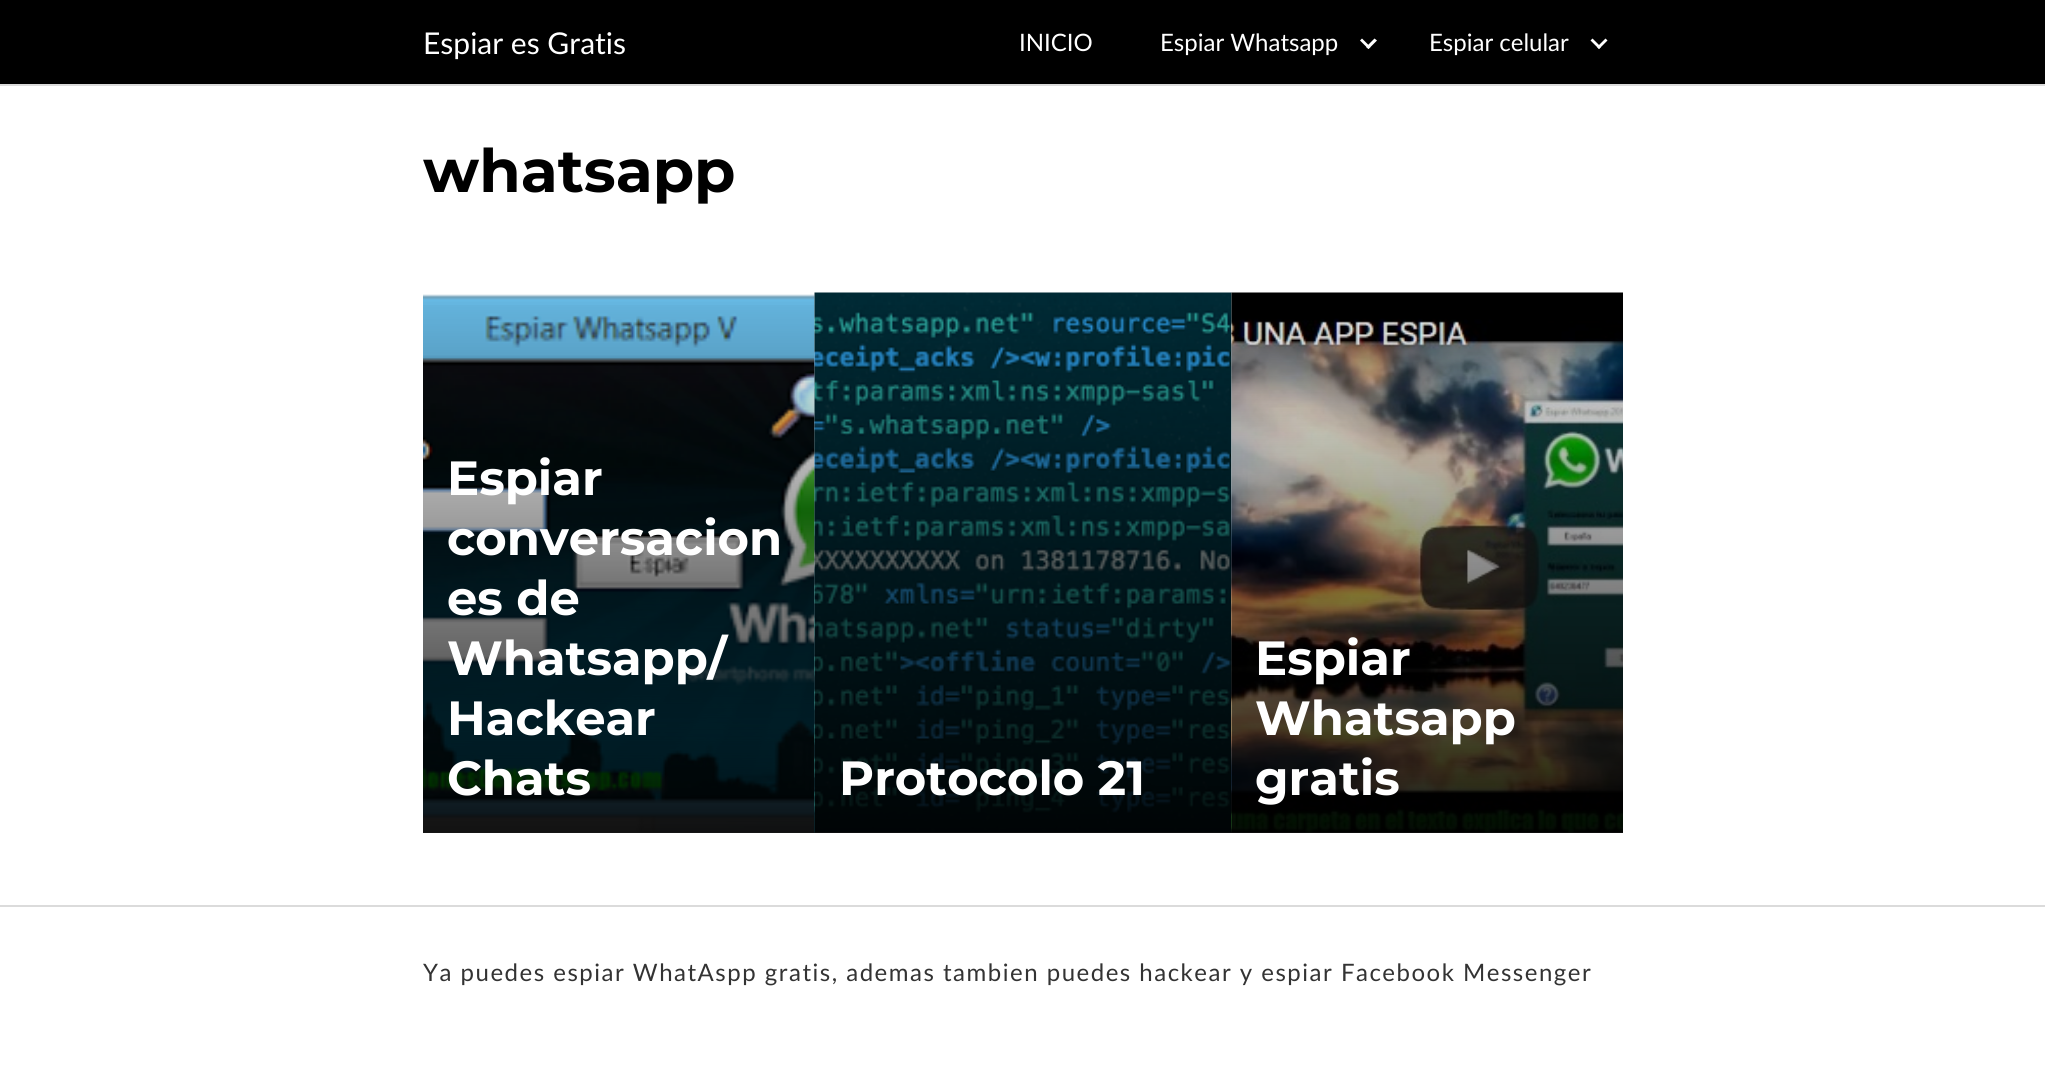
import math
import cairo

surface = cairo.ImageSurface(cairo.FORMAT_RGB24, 2045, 1073)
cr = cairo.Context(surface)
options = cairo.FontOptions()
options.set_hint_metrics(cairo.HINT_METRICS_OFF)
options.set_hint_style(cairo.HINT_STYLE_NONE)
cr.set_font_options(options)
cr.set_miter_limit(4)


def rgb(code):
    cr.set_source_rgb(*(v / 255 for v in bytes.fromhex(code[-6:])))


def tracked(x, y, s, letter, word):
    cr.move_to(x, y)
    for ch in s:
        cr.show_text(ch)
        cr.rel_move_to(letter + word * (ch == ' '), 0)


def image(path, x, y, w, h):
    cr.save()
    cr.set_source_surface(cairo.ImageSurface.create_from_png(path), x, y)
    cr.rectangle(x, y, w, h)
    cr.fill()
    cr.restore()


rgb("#ffffff")
cr.paint()
rgb("#000000")
cr.rectangle(0, 0, 2045, 84)
cr.fill()
rgb("#dbdbdb")
cr.rectangle(0, 84, 2045, 2)
cr.fill()
rgb("#ffffff")
cr.new_path()
cr.move_to(1374.5, 38.5)
cr.line_to(1377, 40.5)
cr.line_to(1368.5, 49)
cr.line_to(1366, 47)
cr.close_path()
cr.fill()
cr.new_path()
cr.move_to(1362, 38.5)
cr.line_to(1370.5, 47)
cr.line_to(1368.5, 49)
cr.line_to(1360, 40.5)
cr.close_path()
cr.fill()
cr.new_path()
cr.move_to(1605.5, 38.5)
cr.line_to(1607.5, 40.5)
cr.line_to(1599, 49)
cr.line_to(1597, 47)
cr.close_path()
cr.fill()
cr.new_path()
cr.move_to(1592.5, 38.5)
cr.line_to(1601, 47)
cr.line_to(1599, 49)
cr.line_to(1590.5, 40.5)
cr.close_path()
cr.fill()
image("img/1.png", 423, 294, 392, 539)
gradient = cairo.LinearGradient(619, 292, 619, 833)
gradient.add_color_stop_rgba(0, 0, 0, 0, 0)
gradient.add_color_stop_rgba(1, 0, 0, 0, 0.9)
cr.set_source(gradient)
cr.rectangle(423, 305, 392, 528)
cr.fill()
image("img/2.png", 814, 292, 418, 541)
gradient = cairo.LinearGradient(1023, 292, 1023, 833)
gradient.add_color_stop_rgba(0, 0, 0, 0, 0)
gradient.add_color_stop_rgba(1, 0, 0, 0, 0.9)
cr.set_source(gradient)
cr.rectangle(815, 305, 417, 528)
cr.fill()
image("img/3.png", 1231, 292, 392, 541)
gradient = cairo.LinearGradient(1427, 292, 1427, 833)
gradient.add_color_stop_rgba(0, 0, 0, 0, 0)
gradient.add_color_stop_rgba(1, 0, 0, 0, 0.9)
cr.set_source(gradient)
cr.rectangle(1232, 321, 391, 512)
cr.fill()
rgb("#dbdbdb")
cr.rectangle(0, 905, 2045, 2)
cr.fill()
cr.select_font_face("Lato")
cr.set_font_size(30)
rgb("#ffffff")
cr.move_to(423, 54)
cr.show_text("Espiar es Gratis")
cr.set_font_size(24)
for x, y, s in [
    (1019, 51, "INICIO"),
    (1160, 51, "Espiar Whatsapp"),
    (1429, 51, "Espiar celular"),
]:
    cr.move_to(x, y)
    cr.show_text(s)
cr.select_font_face("Montserrat", cairo.FONT_SLANT_NORMAL, cairo.FONT_WEIGHT_BOLD)
cr.set_font_size(60)
rgb("#000000")
cr.move_to(423, 192)
cr.show_text("whatsapp")
cr.set_font_size(48)
rgb("#ffffff")
for x, y, s in [
    (447, 495, "Espiar"),
    (447, 555, "conversacion"),
    (447, 615, "es de"),
    (447, 675, "Whatsapp/"),
    (447, 735, "Hackear"),
    (447, 795, "Chats"),
    (839, 795, "Protocolo 21"),
    (1255, 675, "Espiar"),
    (1255, 735, "Whatsapp"),
    (1255, 795, "gratis"),
]:
    cr.move_to(x, y)
    cr.show_text(s)
cr.select_font_face("Lato")
cr.set_font_size(24)
rgb("#333333")
tracked(423, 981, "Ya puedes espiar WhatAspp gratis, ademas tambien puedes hackear y espiar Facebook Messenger", 1.5, 0)
surface.write_to_png("page.png")
